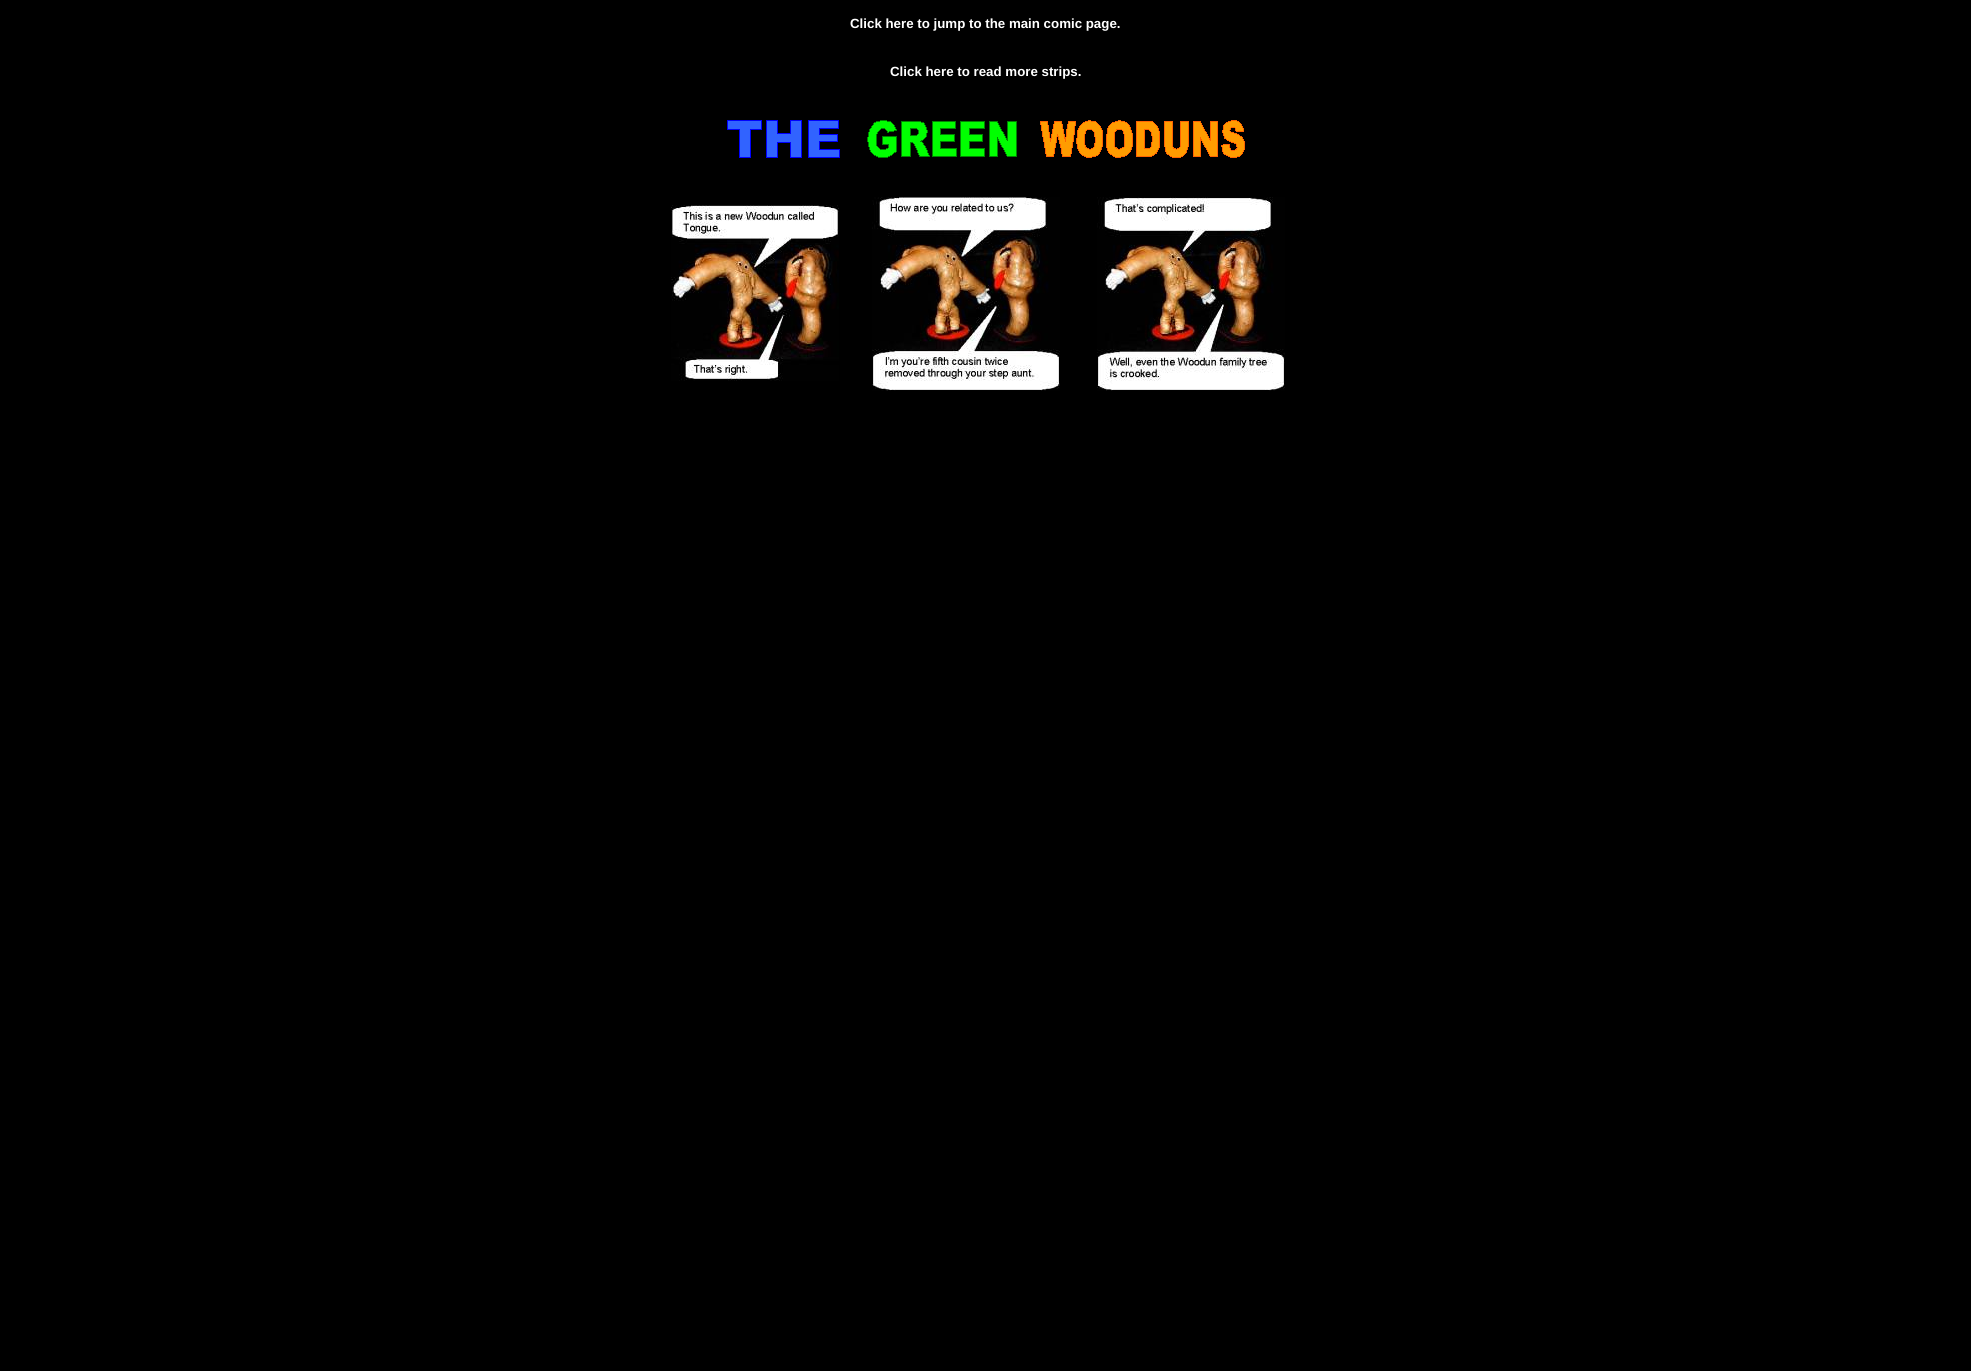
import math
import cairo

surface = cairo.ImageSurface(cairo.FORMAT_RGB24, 1971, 1371)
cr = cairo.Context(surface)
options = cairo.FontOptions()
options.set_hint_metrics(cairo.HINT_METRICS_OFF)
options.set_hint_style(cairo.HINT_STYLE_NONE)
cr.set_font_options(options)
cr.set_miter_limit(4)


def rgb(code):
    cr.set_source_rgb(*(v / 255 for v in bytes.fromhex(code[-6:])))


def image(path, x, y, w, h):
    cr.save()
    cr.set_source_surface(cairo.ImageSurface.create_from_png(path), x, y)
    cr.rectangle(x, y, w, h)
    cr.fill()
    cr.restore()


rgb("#000000")
cr.paint()
image("img/1.png", 727, 120, 518, 38)
image("img/2.png", 671, 205, 168, 176)
image("img/3.png", 872, 197, 188, 194)
image("img/4.png", 1097, 197, 188, 194)
cr.select_font_face("Liberation Sans", cairo.FONT_SLANT_NORMAL, cairo.FONT_WEIGHT_BOLD)
cr.set_font_size(13.3)
rgb("#ffffff")
cr.move_to(850, 28)
cr.show_text("Click here to jump to the main comic page.")
cr.move_to(890, 76)
cr.show_text("Click here to read more strips.")
surface.write_to_png("page.png")
